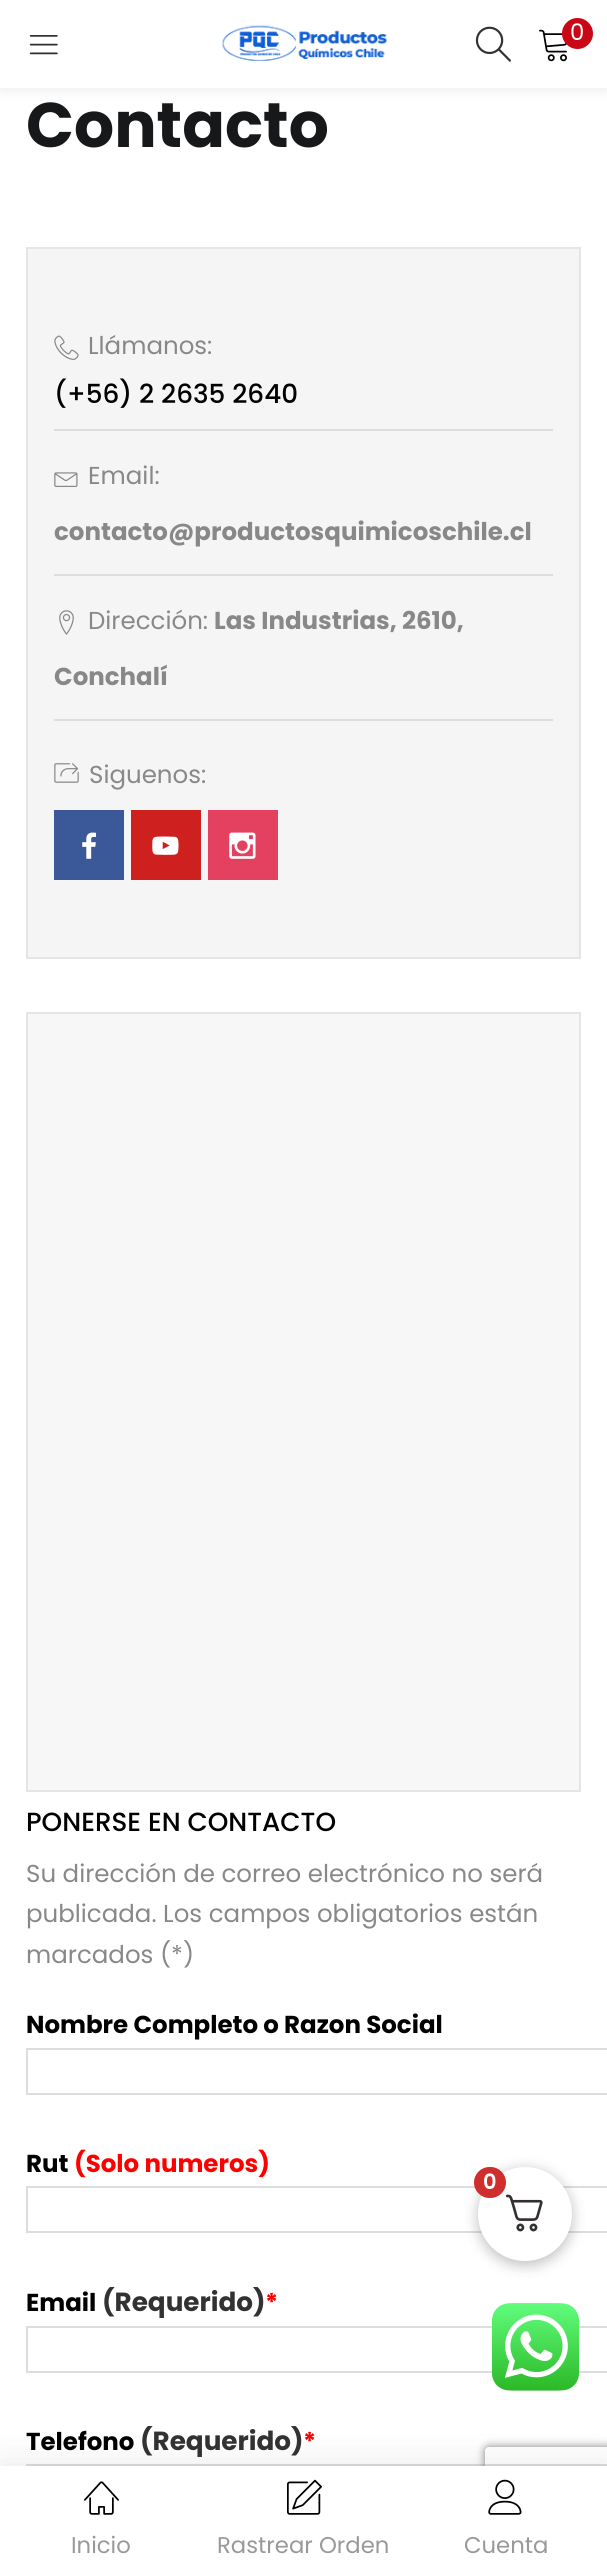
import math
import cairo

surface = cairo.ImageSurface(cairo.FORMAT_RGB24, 607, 2575)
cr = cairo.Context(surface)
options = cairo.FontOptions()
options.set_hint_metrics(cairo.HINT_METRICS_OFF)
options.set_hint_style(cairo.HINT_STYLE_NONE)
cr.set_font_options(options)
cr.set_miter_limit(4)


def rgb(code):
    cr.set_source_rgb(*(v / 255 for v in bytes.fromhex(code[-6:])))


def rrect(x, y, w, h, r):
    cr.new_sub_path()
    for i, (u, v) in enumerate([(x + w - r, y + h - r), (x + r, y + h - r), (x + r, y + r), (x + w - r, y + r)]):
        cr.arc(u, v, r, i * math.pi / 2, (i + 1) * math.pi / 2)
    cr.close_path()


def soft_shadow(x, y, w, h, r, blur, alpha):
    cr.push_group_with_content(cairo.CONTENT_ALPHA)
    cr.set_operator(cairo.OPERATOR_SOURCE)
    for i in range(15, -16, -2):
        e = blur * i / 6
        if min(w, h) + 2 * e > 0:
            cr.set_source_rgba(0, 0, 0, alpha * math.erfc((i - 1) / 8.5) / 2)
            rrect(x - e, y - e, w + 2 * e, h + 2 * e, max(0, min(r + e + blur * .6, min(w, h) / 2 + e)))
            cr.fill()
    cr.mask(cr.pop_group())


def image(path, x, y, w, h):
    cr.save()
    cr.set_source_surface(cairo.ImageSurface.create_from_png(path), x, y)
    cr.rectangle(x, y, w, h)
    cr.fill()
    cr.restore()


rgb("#ffffff")
cr.paint()
rgb("#000000")
soft_shadow(0, 0, 607, 88, 0, 7, 0.1)
rgb("#ffffff")
cr.rectangle(0, 0, 607, 88)
cr.fill()
image("img/1.png", 29, 35, 29, 20)
image("img/2.png", 222, 25, 166, 36)
image("img/3.png", 475, 26, 36, 36)
image("img/4.png", 539, 29, 28, 33)
rgb("#ca0815")
cr.arc(577.5, 33.5, 15.5, 0, 2 * math.pi)
cr.fill()
rgb("#f5f5f5")
cr.rectangle(27, 248, 553, 710)
cr.fill_preserve()
rgb("#e5e5e5")
cr.stroke()
rgb("#dddddd")
cr.rectangle(54, 429, 499, 2)
cr.fill()
image("img/5.png", 54, 335, 25, 25)
cr.rectangle(54, 574, 499, 2)
cr.fill()
image("img/6.png", 54, 472, 24, 15)
cr.rectangle(54, 719, 499, 2)
cr.fill()
image("img/7.png", 59, 610, 15, 25)
image("img/8.png", 54, 763, 25, 20)
rgb("#3b5999")
cr.rectangle(54, 810, 70, 70)
cr.fill()
image("img/9.png", 82, 832, 15, 27)
rgb("#cd201f")
cr.rectangle(131, 810, 70, 70)
cr.fill()
image("img/10.png", 152, 836, 27, 19)
rgb("#e4405f")
cr.rectangle(208, 810, 70, 70)
cr.fill()
image("img/11.png", 229, 832, 27, 27)
rgb("#f7f7f7")
cr.rectangle(27, 1013, 553, 778)
cr.fill_preserve()
rgb("#e5e5e5")
cr.stroke()
cr.rectangle(27, 2049, 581, 45)
rgb("#dddddd")
cr.stroke()
cr.rectangle(27, 2187, 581, 45)
cr.stroke()
cr.rectangle(27, 2327, 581, 45)
cr.stroke()
cr.rectangle(27, 2465, 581, 45)
cr.stroke()
rgb("#000000")
soft_shadow(0, 2466, 607, 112, 0, 17.5, 0.1)
cr.save()
cr.set_fill_rule(cairo.FILL_RULE_EVEN_ODD)
cr.new_path()
cr.move_to(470, 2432)
cr.line_to(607, 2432)
cr.line_to(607, 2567)
cr.line_to(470, 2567)
cr.close_path()
cr.move_to(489, 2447)
cr.line_to(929, 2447)
cr.curve_to(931, 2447, 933, 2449, 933, 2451)
cr.line_to(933, 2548)
cr.curve_to(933, 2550, 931, 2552, 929, 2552)
cr.line_to(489, 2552)
cr.curve_to(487, 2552, 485, 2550, 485, 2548)
cr.line_to(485, 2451)
cr.curve_to(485, 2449, 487, 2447, 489, 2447)
cr.close_path()
cr.clip()
rgb("#808080")
soft_shadow(485, 2447, 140, 105, 4, 4.5, 1)
cr.restore()
rgb("#ffffff")
cr.rectangle(0, 2466, 607, 109)
cr.fill()
image("img/12.png", 84, 2481, 35, 34)
image("img/13.png", 287, 2479, 35, 36)
image("img/14.png", 488, 2479, 34, 36)
rgb("#000000")
soft_shadow(478, 2170, 94, 95, 47, 7, 0.25)
rgb("#ffffff")
cr.arc(525, 2214, 47, 0, 2 * math.pi)
cr.fill()
image("img/15.png", 506, 2194, 37, 38)
rgb("#cf2e2e")
rrect(474, 2167, 32, 31, 15.5)
cr.fill()
image("img/16.png", 492, 2303, 87, 88)
cr.select_font_face("Poppins")
cr.set_font_size(22.75)
rgb("#ffffff")
cr.move_to(570, 40)
cr.show_text("0")
cr.select_font_face("Poppins", cairo.FONT_SLANT_NORMAL, cairo.FONT_WEIGHT_BOLD)
cr.set_font_size(63)
rgb("#17181a")
cr.move_to(26, 147)
cr.show_text("Contacto")
cr.select_font_face("Poppins")
cr.set_font_size(24.5)
rgb("#888888")
cr.move_to(88, 354)
cr.show_text("Llámanos:")
cr.select_font_face("Poppins Medium")
cr.set_font_size(26.25)
rgb("#000000")
cr.move_to(54, 403)
cr.show_text("(+56) 2 2635 2640")
cr.select_font_face("Poppins")
cr.set_font_size(24.5)
rgb("#888888")
cr.move_to(88, 484)
cr.show_text("Email:")
cr.select_font_face("Poppins", cairo.FONT_SLANT_NORMAL, cairo.FONT_WEIGHT_BOLD)
cr.move_to(54, 540)
cr.show_text("contacto@productosquimicoschile.cl")
cr.select_font_face("Poppins")
cr.move_to(88, 629)
cr.show_text("Dirección:")
cr.select_font_face("Poppins", cairo.FONT_SLANT_NORMAL, cairo.FONT_WEIGHT_BOLD)
cr.move_to(214, 629)
cr.show_text("Las Industrias, 2610,")
cr.move_to(54, 685)
cr.show_text("Conchalí")
cr.select_font_face("Poppins")
cr.move_to(89, 783)
cr.show_text("Siguenos:")
cr.select_font_face("Poppins Medium")
cr.set_font_size(26.25)
rgb("#000000")
cr.move_to(26, 1831)
cr.show_text("PONERSE EN CONTACTO")
cr.select_font_face("Poppins")
cr.set_font_size(24.5)
rgb("#888888")
for x, y, s in [
    (26, 1882, "Su dirección de correo electrónico no será"),
    (26, 1922, "publicada. Los campos obligatorios están"),
    (26, 1963, "marcados (*)"),
]:
    cr.move_to(x, y)
    cr.show_text(s)
cr.select_font_face("Poppins", cairo.FONT_SLANT_NORMAL, cairo.FONT_WEIGHT_BOLD)
rgb("#000000")
cr.move_to(26, 2033)
cr.show_text("Nombre Completo o Razon Social")
cr.move_to(26, 2172)
cr.show_text("Rut")
rgb("#ff0000")
cr.move_to(74, 2172)
cr.show_text("(Solo numeros)")
rgb("#000000")
cr.move_to(26, 2311)
cr.show_text("Email")
cr.set_font_size(26.25)
rgb("#323232")
cr.move_to(102, 2311)
cr.show_text("(Requerido)")
cr.set_font_size(24.5)
rgb("#ff0000")
cr.move_to(265, 2311)
cr.show_text("*")
rgb("#000000")
cr.move_to(26, 2450)
cr.show_text("Telefono")
cr.set_font_size(26.25)
rgb("#323232")
cr.move_to(140, 2450)
cr.show_text("(Requerido)")
cr.set_font_size(24.5)
rgb("#ff0000")
cr.move_to(303, 2450)
cr.show_text("*")
cr.select_font_face("Poppins")
cr.set_font_size(22.75)
rgb("#999999")
for x, y, s in [
    (71, 2553, "Inicio"),
    (217, 2553, "Rastrear Orden"),
    (464, 2553, "Cuenta"),
]:
    cr.move_to(x, y)
    cr.show_text(s)
cr.select_font_face("Poppins SemiBold")
cr.set_font_size(21)
rgb("#ffffff")
cr.move_to(483, 2189)
cr.show_text("0")
surface.write_to_png("page.png")
